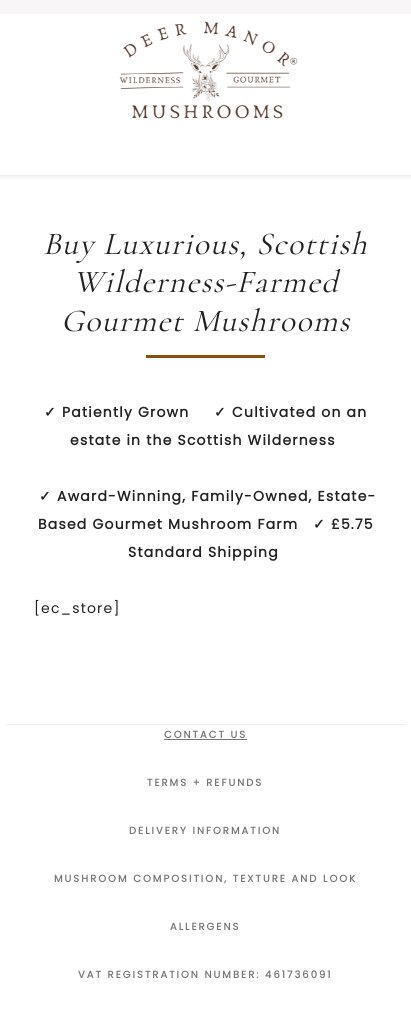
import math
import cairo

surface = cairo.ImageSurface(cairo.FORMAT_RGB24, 411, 1013)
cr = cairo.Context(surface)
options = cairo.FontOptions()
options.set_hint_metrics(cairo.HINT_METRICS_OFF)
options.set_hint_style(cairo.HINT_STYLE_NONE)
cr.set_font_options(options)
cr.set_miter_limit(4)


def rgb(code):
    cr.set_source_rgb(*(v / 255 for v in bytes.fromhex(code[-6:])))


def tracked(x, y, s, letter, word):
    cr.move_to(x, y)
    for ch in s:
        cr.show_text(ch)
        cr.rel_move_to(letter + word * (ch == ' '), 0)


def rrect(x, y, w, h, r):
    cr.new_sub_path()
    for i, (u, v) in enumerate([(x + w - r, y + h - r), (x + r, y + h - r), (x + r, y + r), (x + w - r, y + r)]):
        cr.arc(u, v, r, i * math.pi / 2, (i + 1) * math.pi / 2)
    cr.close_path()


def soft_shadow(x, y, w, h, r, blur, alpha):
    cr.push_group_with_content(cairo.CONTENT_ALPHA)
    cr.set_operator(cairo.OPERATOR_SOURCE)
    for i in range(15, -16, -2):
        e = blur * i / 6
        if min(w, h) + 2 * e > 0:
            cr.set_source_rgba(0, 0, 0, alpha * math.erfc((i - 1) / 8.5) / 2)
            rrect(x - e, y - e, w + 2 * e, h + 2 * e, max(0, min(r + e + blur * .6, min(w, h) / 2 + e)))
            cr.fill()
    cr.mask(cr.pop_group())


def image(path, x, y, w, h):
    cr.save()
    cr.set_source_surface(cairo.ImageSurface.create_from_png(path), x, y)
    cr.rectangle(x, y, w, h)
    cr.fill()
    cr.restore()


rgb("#ffffff")
cr.paint()
cr.save()
cr.rectangle(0, 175, 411, 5)
cr.clip()
rgb("#bebebe")
soft_shadow(0, 1, 411, 175, 0, 2.5, 0.46)
cr.restore()
rgb("#f8f6f7")
cr.rectangle(0, 0, 411, 14)
cr.fill()
image("img/1.png", 119, 21, 179, 98)
for x, y, w, h, color in [
    (146, 355, 119, 3, "#875309"),
    (6, 724, 400, 1, "#eeeeee"),
    (164, 739, 83, 1, "#777676"),
]:
    rgb(color)
    cr.rectangle(x, y, w, h)
    cr.fill()
cr.select_font_face("Cormorant Light", cairo.FONT_SLANT_ITALIC)
cr.set_font_size(32)
rgb("#222222")
for x, y, s in [
    (43, 254, "Buy Luxurious, Scottish"),
    (73, 292, "Wilderness-Farmed"),
    (61, 331, "Gourmet Mushrooms"),
]:
    tracked(x, y, s, 1.25, 0)
cr.select_font_face("DejaVu Sans", cairo.FONT_SLANT_NORMAL, cairo.FONT_WEIGHT_BOLD)
cr.set_font_size(14)
tracked(44, 417, "✓", 1.2, 0)
cr.select_font_face("Poppins", cairo.FONT_SLANT_NORMAL, cairo.FONT_WEIGHT_BOLD)
tracked(62, 417, "Patiently Grown", 1.2, 0)
cr.select_font_face("DejaVu Sans", cairo.FONT_SLANT_NORMAL, cairo.FONT_WEIGHT_BOLD)
tracked(214, 417, "✓", 1.2, 0)
cr.select_font_face("Poppins", cairo.FONT_SLANT_NORMAL, cairo.FONT_WEIGHT_BOLD)
tracked(232, 417, "Cultivated on an", 1.2, 0)
tracked(70, 445, "estate in the Scottish Wilderness", 1.2, 0)
cr.select_font_face("DejaVu Sans", cairo.FONT_SLANT_NORMAL, cairo.FONT_WEIGHT_BOLD)
tracked(39, 501, "✓", 1.2, 0)
cr.select_font_face("Poppins", cairo.FONT_SLANT_NORMAL, cairo.FONT_WEIGHT_BOLD)
tracked(57, 501, "Award-Winning, Family-Owned, Estate-", 1.2, 0)
tracked(38, 529, "Based Gourmet Mushroom Farm", 1.2, 0)
cr.select_font_face("DejaVu Sans", cairo.FONT_SLANT_NORMAL, cairo.FONT_WEIGHT_BOLD)
tracked(313, 529, "✓", 1.2, 0)
cr.select_font_face("Poppins", cairo.FONT_SLANT_NORMAL, cairo.FONT_WEIGHT_BOLD)
tracked(331, 529, "£5.75", 1.2, 0)
tracked(128, 557, "Standard Shipping", 1.2, 0)
cr.select_font_face("Poppins")
tracked(34, 613, "[ec_store]", 1.2, 0)
cr.select_font_face("Poppins", cairo.FONT_SLANT_NORMAL, cairo.FONT_WEIGHT_BOLD)
cr.set_font_size(10)
rgb("#777676")
for x, y, s in [
    (164, 738, "CONTACT US"),
    (147, 786, "TERMS + REFUNDS"),
    (129, 834, "DELIVERY INFORMATION"),
    (54, 882, "MUSHROOM COMPOSITION, TEXTURE AND LOOK"),
    (170, 930, "ALLERGENS"),
    (78, 978, "VAT REGISTRATION NUMBER: 461736091"),
]:
    tracked(x, y, s, 2, 0)
surface.write_to_png("page.png")
